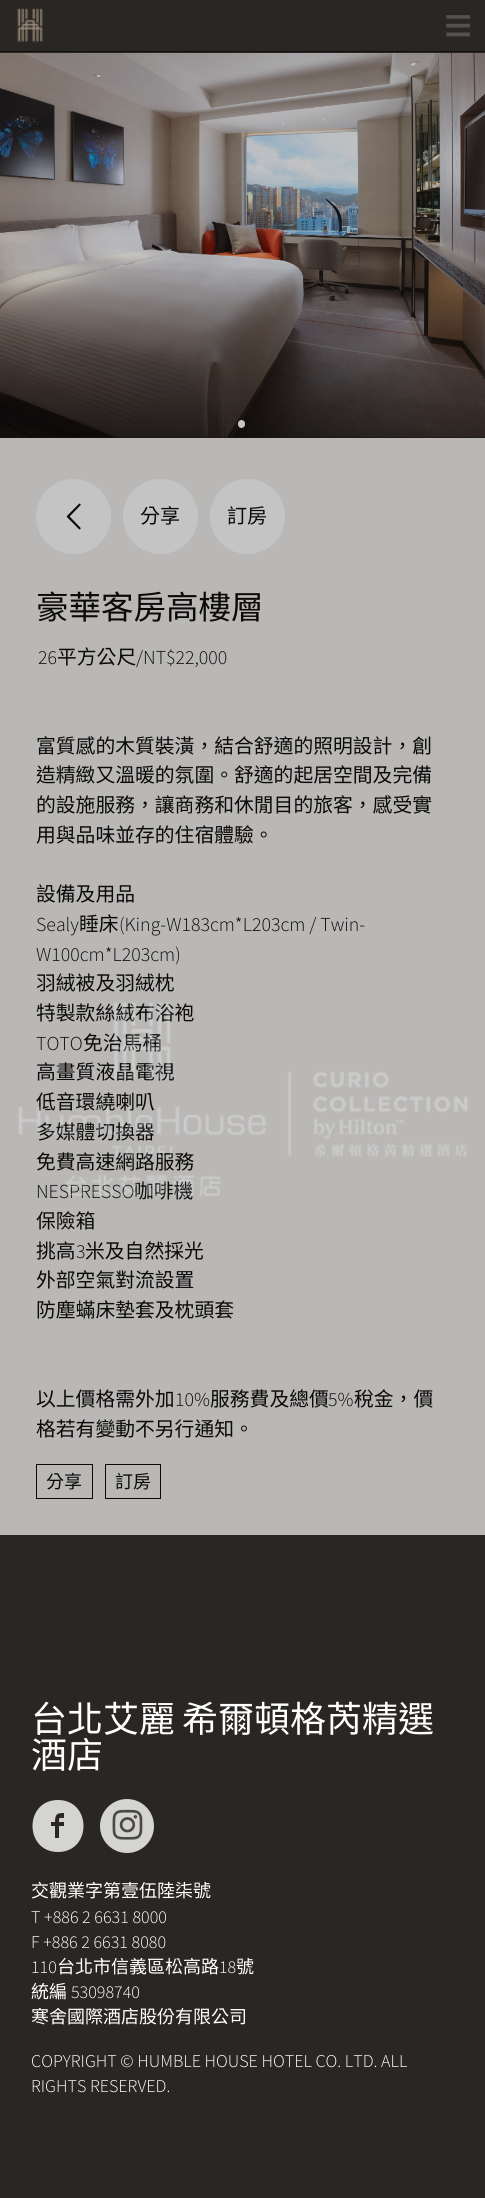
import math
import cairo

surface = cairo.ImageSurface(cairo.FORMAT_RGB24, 485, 2198)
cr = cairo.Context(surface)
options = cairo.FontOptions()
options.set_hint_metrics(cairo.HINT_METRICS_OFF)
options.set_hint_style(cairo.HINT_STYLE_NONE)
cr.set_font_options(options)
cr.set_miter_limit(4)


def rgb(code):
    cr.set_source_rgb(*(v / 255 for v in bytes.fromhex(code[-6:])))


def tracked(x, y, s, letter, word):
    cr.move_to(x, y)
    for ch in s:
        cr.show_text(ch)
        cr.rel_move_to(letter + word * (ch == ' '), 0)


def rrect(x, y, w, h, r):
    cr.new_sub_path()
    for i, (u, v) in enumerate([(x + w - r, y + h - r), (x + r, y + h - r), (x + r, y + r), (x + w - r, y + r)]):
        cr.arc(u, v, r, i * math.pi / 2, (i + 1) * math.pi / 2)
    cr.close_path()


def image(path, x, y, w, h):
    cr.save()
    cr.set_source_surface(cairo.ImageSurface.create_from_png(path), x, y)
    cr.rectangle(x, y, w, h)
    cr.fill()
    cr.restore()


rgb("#2a2623")
cr.paint()
rgb("#111111")
cr.rectangle(0, 51, 485, 1)
cr.fill()
image("img/1.png", 17, 8, 26, 35)
image("img/2.png", 446, 15, 25, 22)
image("img/3.png", 0, 53, 485, 385)
gradient = cairo.LinearGradient(243, 219, 243, 438)
gradient.add_color_stop_rgba(0.2, 0.043, 0.039, 0.035, 0)
gradient.add_color_stop_rgba(1, 0.043, 0.039, 0.035, 0.6)
cr.set_source(gradient)
cr.rectangle(0, 269, 485, 169)
cr.fill()
rgb("#c5c4c4")
rrect(238, 420, 7, 8, 3.5)
cr.fill()
rgb("#b9b8b7")
cr.rectangle(0, 438, 485, 1097)
cr.fill()
rgb("#c5c4c4")
cr.arc(73.5, 516.5, 37.5, 0, 2 * math.pi)
cr.fill()
image("img/4.png", 66, 503, 15, 27)
cr.arc(160.5, 516.5, 37.5, 0, 2 * math.pi)
cr.fill()
cr.arc(247.5, 516.5, 37.5, 0, 2 * math.pi)
cr.fill()
cr.rectangle(36.5, 1464.5, 56, 34)
rgb("#0b0a09")
cr.set_line_width(1)
cr.stroke()
cr.rectangle(105.5, 1464.5, 55, 34)
cr.stroke()
rgb("#d4d4d3")
cr.new_path()
cr.move_to(58, 1800)
cr.curve_to(24, 1800, 24, 1852, 58, 1852)
cr.curve_to(92, 1852, 92, 1800, 58, 1800)
cr.close_path()
cr.move_to(64, 1818)
cr.curve_to(59, 1818, 59, 1817, 59, 1822)
cr.line_to(64, 1822)
cr.line_to(64, 1826)
cr.line_to(59, 1826)
cr.line_to(59, 1838)
cr.line_to(55, 1838)
cr.line_to(55, 1826)
cr.line_to(51, 1826)
cr.line_to(51, 1822)
cr.line_to(55, 1822)
cr.curve_to(55, 1814, 57, 1813, 64, 1813)
cr.close_path()
cr.fill()
cr.arc(127, 1826, 27, 0, 2 * math.pi)
cr.fill()
image("img/5.png", 112, 1809, 31, 31)
cr.select_font_face("Noto Sans CJK TC")
cr.set_font_size(20)
rgb("#0b0a09")
cr.move_to(140, 523)
cr.show_text("分享")
cr.move_to(227, 523)
cr.show_text("訂房")
cr.set_font_size(32.5)
cr.move_to(36, 619)
cr.show_text("豪華客房高樓層")
cr.select_font_face("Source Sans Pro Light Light")
cr.set_font_size(19.8)
cr.move_to(38, 664)
cr.show_text("26")
cr.select_font_face("Noto Sans CJK TC")
cr.move_to(57, 664)
cr.show_text("平方公尺")
cr.select_font_face("Source Sans Pro Light Light")
cr.move_to(136, 664)
cr.show_text("/NT$22,000")
cr.select_font_face("Noto Sans CJK TC")
for x, y, s in [
    (36, 753, "富質感的木質裝潢，結合舒適的照明設計，創"),
    (36, 782, "造精緻又溫暖的氛圍。舒適的起居空間及完備"),
    (36, 812, "的設施服務，讓商務和休閒目的旅客，感受實"),
    (36, 842, "用與品味並存的住宿體驗。"),
    (36, 901, "設備及用品"),
]:
    cr.move_to(x, y)
    cr.show_text(s)
cr.select_font_face("Source Sans Pro Light Light")
cr.move_to(36, 931)
cr.show_text("Sealy")
cr.select_font_face("Noto Sans CJK TC")
cr.move_to(79, 931)
cr.show_text("睡床")
cr.select_font_face("Source Sans Pro Light Light")
cr.move_to(119, 931)
cr.show_text("(King-W183cm*L203cm / Twin-")
cr.move_to(36, 961)
cr.show_text("W100cm*L203cm)")
cr.select_font_face("Noto Sans CJK TC")
cr.move_to(36, 990)
cr.show_text("羽絨被及羽絨枕")
cr.move_to(36, 1020)
cr.show_text("特製款絲絨布浴袍")
cr.select_font_face("Source Sans Pro Light Light")
cr.move_to(36, 1050)
cr.show_text("TOTO")
cr.select_font_face("Noto Sans CJK TC")
for x, y, s in [
    (83, 1050, "免治馬桶"),
    (36, 1079, "高畫質液晶電視"),
    (36, 1109, "低音環繞喇叭"),
    (36, 1139, "多媒體切換器"),
    (36, 1169, "免費高速網路服務"),
]:
    cr.move_to(x, y)
    cr.show_text(s)
cr.select_font_face("Source Sans Pro Light Light")
cr.move_to(36, 1198)
cr.show_text("NESPRESSO")
cr.select_font_face("Noto Sans CJK TC")
for x, y, s in [
    (134, 1198, "咖啡機"),
    (36, 1228, "保險箱"),
    (36, 1258, "挑高"),
]:
    cr.move_to(x, y)
    cr.show_text(s)
cr.select_font_face("Source Sans Pro Light Light")
cr.move_to(76, 1258)
cr.show_text("3")
cr.select_font_face("Noto Sans CJK TC")
for x, y, s in [
    (85, 1258, "米及自然採光"),
    (36, 1287, "外部空氣對流設置"),
    (36, 1317, "防塵蟎床墊套及枕頭套"),
    (36, 1406, "以上價格需外加"),
]:
    cr.move_to(x, y)
    cr.show_text(s)
cr.select_font_face("Source Sans Pro Light Light")
cr.move_to(175, 1406)
cr.show_text("10%")
cr.select_font_face("Noto Sans CJK TC")
cr.move_to(210, 1406)
cr.show_text("服務費及總價")
cr.select_font_face("Source Sans Pro Light Light")
cr.move_to(328, 1406)
cr.show_text("5%")
cr.select_font_face("Noto Sans CJK TC")
cr.move_to(354, 1406)
cr.show_text("稅金，價")
cr.move_to(36, 1436)
cr.show_text("格若有變動不另行通知。")
cr.set_font_size(18)
cr.move_to(46, 1488)
cr.show_text("分享")
cr.move_to(115, 1488)
cr.show_text("訂房")
cr.set_font_size(36)
rgb("#ffffff")
tracked(31, 1732, "台北艾麗 希爾頓格芮精選", 0, -1)
cr.move_to(31, 1768)
cr.show_text("酒店")
cr.set_font_size(18)
cr.move_to(31, 1897)
cr.show_text("交觀業字第壹伍陸柒號")
cr.select_font_face("Source Sans Pro Light Light")
for x, y, s in [
    (31, 1923, "T +886 2 6631 8000"),
    (31, 1948, "F +886 2 6631 8080"),
    (31, 1973, "110"),
]:
    cr.move_to(x, y)
    cr.show_text(s)
cr.select_font_face("Noto Sans CJK TC")
cr.move_to(57, 1973)
cr.show_text("台北市信義區松高路")
cr.select_font_face("Source Sans Pro Light Light")
cr.move_to(219, 1973)
cr.show_text("18")
cr.select_font_face("Noto Sans CJK TC")
cr.move_to(236, 1973)
cr.show_text("號")
cr.move_to(31, 1998)
cr.show_text("統編")
cr.select_font_face("Source Sans Pro Light Light")
cr.move_to(71, 1998)
cr.show_text("53098740")
cr.select_font_face("Noto Sans CJK TC")
cr.move_to(31, 2023)
cr.show_text("寒舍國際酒店股份有限公司")
cr.select_font_face("Source Sans Pro Light Light")
cr.move_to(31, 2067)
cr.show_text("COPYRIGHT © HUMBLE HOUSE HOTEL CO. LTD. ALL")
cr.move_to(31, 2092)
cr.show_text("RIGHTS RESERVED.")
image("img/6.png", 18, 1002, 450, 195)
surface.write_to_png("page.png")
